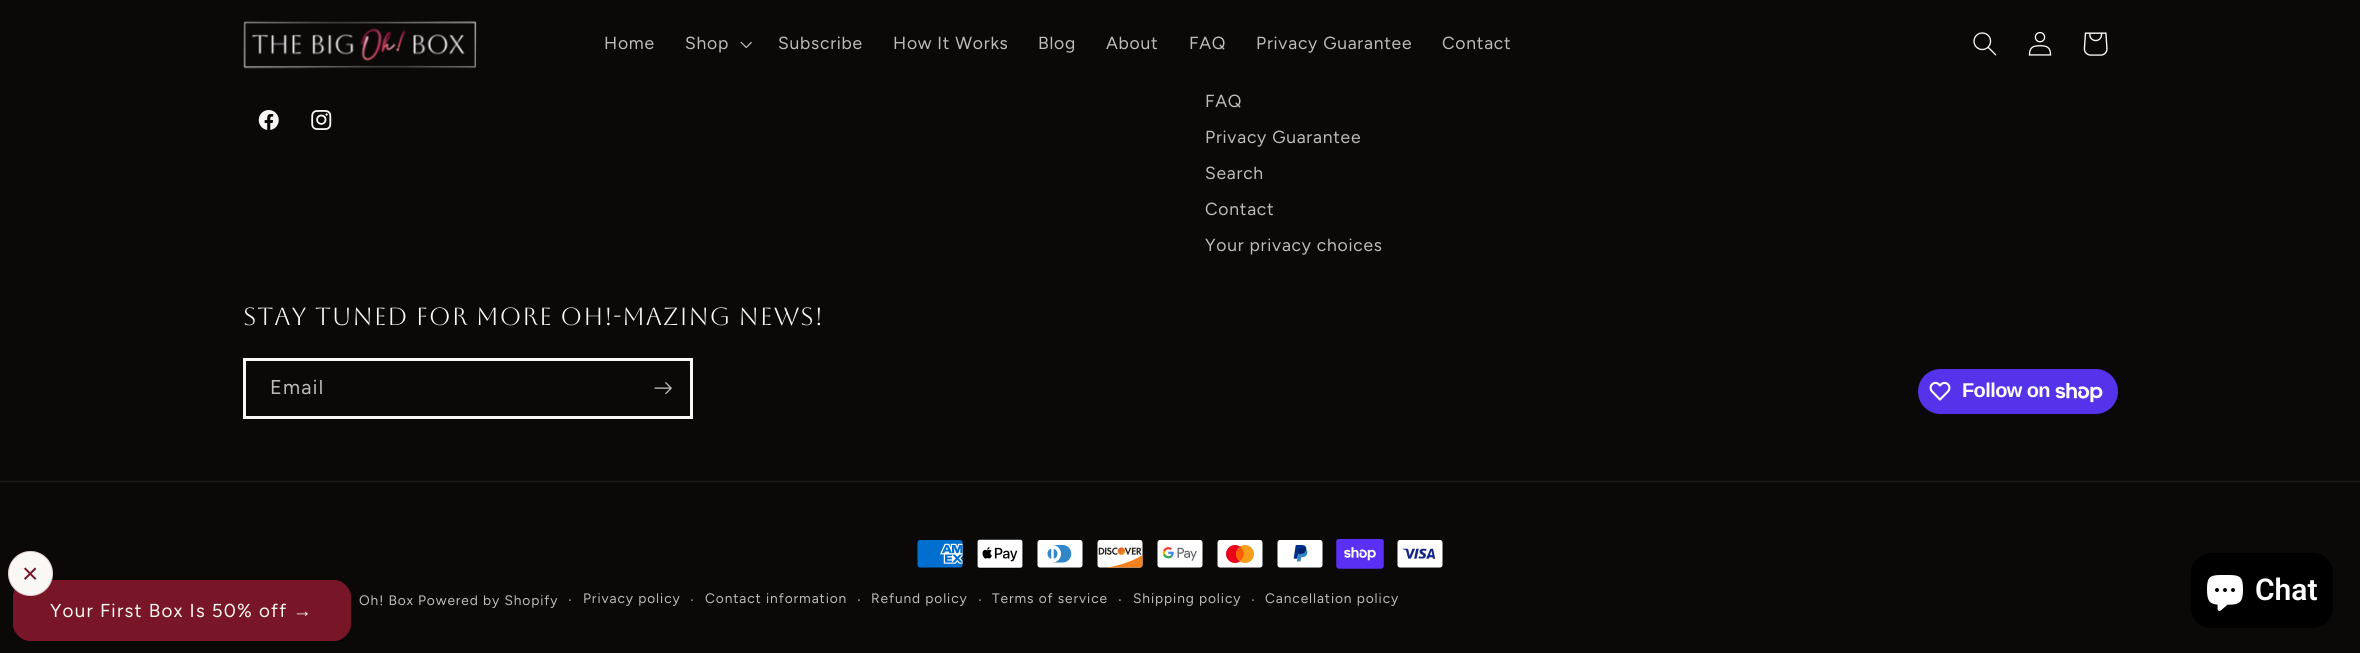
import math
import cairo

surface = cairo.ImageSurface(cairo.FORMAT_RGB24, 2360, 653)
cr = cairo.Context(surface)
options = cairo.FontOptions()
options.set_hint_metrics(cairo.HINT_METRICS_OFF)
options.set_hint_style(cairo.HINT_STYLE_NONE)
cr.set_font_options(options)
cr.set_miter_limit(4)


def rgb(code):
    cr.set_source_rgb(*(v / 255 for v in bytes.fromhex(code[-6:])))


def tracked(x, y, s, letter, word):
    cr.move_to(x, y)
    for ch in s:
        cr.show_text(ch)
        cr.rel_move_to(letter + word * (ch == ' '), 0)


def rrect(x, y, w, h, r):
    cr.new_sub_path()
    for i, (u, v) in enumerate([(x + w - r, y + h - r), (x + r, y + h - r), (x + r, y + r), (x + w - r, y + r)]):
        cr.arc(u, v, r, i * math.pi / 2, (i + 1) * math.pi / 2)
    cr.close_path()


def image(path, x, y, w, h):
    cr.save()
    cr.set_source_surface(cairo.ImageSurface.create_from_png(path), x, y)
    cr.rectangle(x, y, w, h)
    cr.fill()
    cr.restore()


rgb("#0b0808")
cr.paint()
image("img/1.png", 243, 21, 234, 48)
image("img/2.png", 740, 41, 12, 8)
image("img/3.png", 1973, 32, 24, 24)
image("img/4.png", 2028, 31, 24, 25)
image("img/5.png", 2083, 32, 25, 24)
image("img/6.png", 258, 110, 21, 20)
image("img/7.png", 311, 110, 21, 20)
cr.rectangle(244.5, 359.5, 447, 58)
rgb("#f9f8f4")
cr.set_line_width(3)
cr.stroke()
image("img/8.png", 654, 382, 18, 13)
rgb("#5433eb")
rrect(1918, 369, 200, 45, 22.5)
cr.fill()
image("img/9.png", 1929, 381, 22, 20)
image("img/10.png", 2055, 383, 48, 20)
rgb("#1e1b1b")
cr.rectangle(0, 481, 2360, 1)
cr.fill()
image("img/11.png", 917, 540, 46, 28)
image("img/12.png", 976, 539, 48, 30)
image("img/13.png", 1037, 540, 46, 28)
image("img/14.png", 1097, 540, 46, 28)
image("img/15.png", 1157, 540, 46, 28)
image("img/16.png", 1217, 540, 46, 28)
image("img/17.png", 1277, 540, 46, 28)
image("img/18.png", 1336, 539, 48, 30)
image("img/19.png", 1397, 540, 46, 28)
rgb("#000000")
rrect(2191, 553, 142, 75, 20)
cr.fill()
image("img/20.png", 2207, 575, 36, 36)
rgb("#781627")
rrect(13, 580, 338, 61, 18)
cr.fill()
cr.select_font_face("Figtree")
cr.set_font_size(17.5)
rgb("#bebcb9")
for x, y, s in [
    (604, 49, "Home"),
    (685, 49, "Shop"),
    (778, 49, "Subscribe"),
    (893, 49, "How It Works"),
    (1038, 49, "Blog"),
    (1106, 49, "About"),
    (1189, 49, "FAQ"),
    (1256, 49, "Privacy Guarantee"),
    (1442, 49, "Contact"),
    (1205, 107, "FAQ"),
    (1205, 143, "Privacy Guarantee"),
    (1205, 179, "Search"),
    (1205, 215, "Contact"),
    (1205, 251, "Your privacy choices"),
]:
    tracked(x, y, s, 0.75, 0)
cr.select_font_face("Aboreto")
cr.set_font_size(24.75)
rgb("#f9f8f4")
tracked(243, 325, "Stay Tuned for More Oh!-mazing News!", 0.85, 0)
cr.select_font_face("Figtree")
cr.set_font_size(20)
rgb("#bebcb9")
tracked(270, 394, "Email", 1.25, 0)
cr.select_font_face("Liberation Sans", cairo.FONT_SLANT_NORMAL, cairo.FONT_WEIGHT_BOLD)
rgb("#ffffff")
tracked(1962, 397, "Follow on", -0.6, 0)
cr.select_font_face("Figtree")
cr.set_font_size(13.75)
rgb("#bebcb9")
tracked(359, 605, "Oh! Box", 0.9, 0)
tracked(418, 605, "Powered by Shopify", 0.9, 0)
cr.set_font_size(15)
tracked(568, 605, "·", 0.9, 0)
cr.set_font_size(13.75)
tracked(583, 603, "Privacy policy", 0.9, 0)
cr.set_font_size(15)
tracked(690, 605, "·", 0.9, 0)
cr.set_font_size(13.75)
tracked(705, 603, "Contact information", 0.9, 0)
cr.set_font_size(15)
tracked(857, 605, "·", 0.9, 0)
cr.set_font_size(13.75)
tracked(871, 603, "Refund policy", 0.9, 0)
cr.set_font_size(15)
tracked(978, 605, "·", 0.9, 0)
cr.set_font_size(13.75)
tracked(992, 603, "Terms of service", 0.9, 0)
cr.set_font_size(15)
tracked(1118, 605, "·", 0.9, 0)
cr.set_font_size(13.75)
tracked(1133, 603, "Shipping policy", 0.9, 0)
cr.set_font_size(15)
tracked(1251, 605, "·", 0.9, 0)
cr.set_font_size(13.75)
tracked(1265, 603, "Cancellation policy", 0.9, 0)
cr.select_font_face("Roboto SemiBold")
cr.set_font_size(30)
rgb("#ffffff")
cr.move_to(2255, 600)
cr.show_text("Chat")
cr.select_font_face("Figtree")
cr.set_font_size(18.75)
rgb("#f9f8f4")
tracked(50, 617, "Your First Box Is 50% off", 1.25, 0)
cr.select_font_face("Liberation Sans")
tracked(293, 617, "→", 1.25, 0)
rgb("#781627")
cr.set_fill_rule(cairo.FILL_RULE_EVEN_ODD)
cr.new_path()
cr.move_to(13, 598)
cr.line_to(13, 623)
cr.curve_to(13, 627, 14, 630, 16, 633)
cr.line_to(16, 588)
cr.curve_to(14, 591, 13, 594, 13, 598)
cr.close_path()
cr.move_to(31, 580)
cr.curve_to(27, 580, 24, 581, 21, 583)
cr.line_to(343, 583)
cr.curve_to(340, 581, 337, 580, 333, 580)
cr.close_path()
cr.move_to(351, 598)
cr.curve_to(351, 594, 350, 591, 348, 588)
cr.line_to(348, 633)
cr.curve_to(350, 630, 351, 627, 351, 623)
cr.close_path()
cr.move_to(333, 641)
cr.curve_to(337, 641, 340, 640, 343, 638)
cr.line_to(21, 638)
cr.curve_to(24, 640, 27, 641, 31, 641)
cr.close_path()
cr.fill()
rgb("#f9f8f4")
cr.arc(30.5, 573.5, 22.5, 0, 2 * math.pi)
cr.fill()
cr.arc(30.5, 573.5, 22, 0, 2 * math.pi)
cr.set_source_rgba(0.471, 0.086, 0.153, 0.18)
cr.set_line_width(1)
cr.stroke()
cr.set_font_size(28)
rgb("#781627")
cr.move_to(22, 583)
cr.show_text("×")
surface.write_to_png("page.png")
